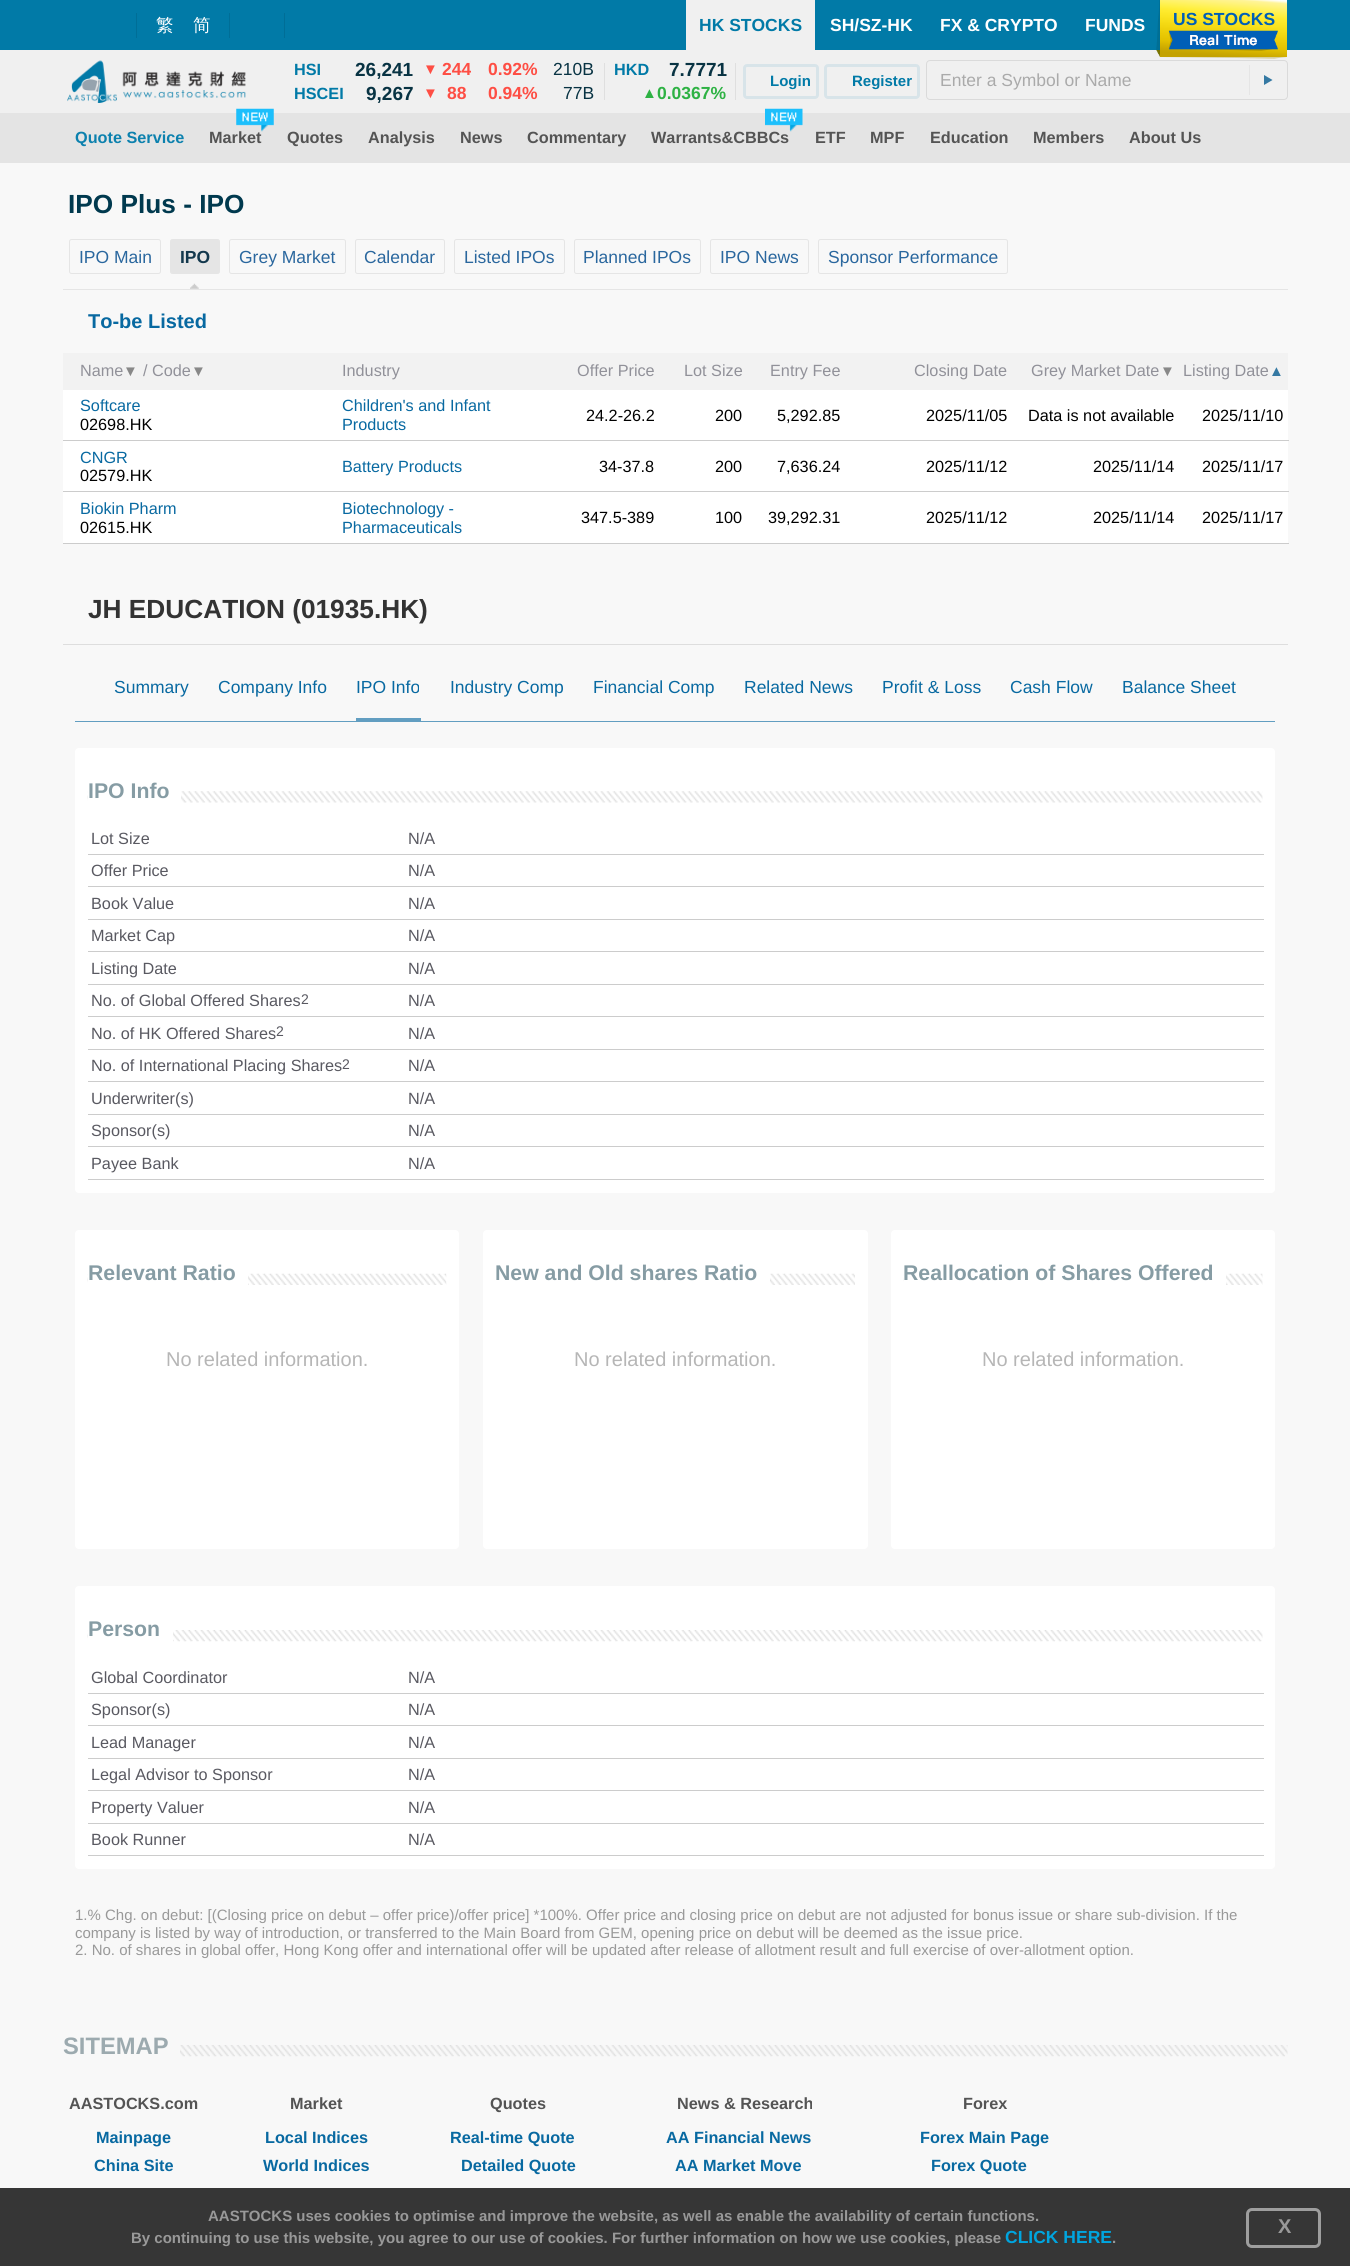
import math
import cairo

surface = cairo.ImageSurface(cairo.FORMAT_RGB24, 1350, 2266)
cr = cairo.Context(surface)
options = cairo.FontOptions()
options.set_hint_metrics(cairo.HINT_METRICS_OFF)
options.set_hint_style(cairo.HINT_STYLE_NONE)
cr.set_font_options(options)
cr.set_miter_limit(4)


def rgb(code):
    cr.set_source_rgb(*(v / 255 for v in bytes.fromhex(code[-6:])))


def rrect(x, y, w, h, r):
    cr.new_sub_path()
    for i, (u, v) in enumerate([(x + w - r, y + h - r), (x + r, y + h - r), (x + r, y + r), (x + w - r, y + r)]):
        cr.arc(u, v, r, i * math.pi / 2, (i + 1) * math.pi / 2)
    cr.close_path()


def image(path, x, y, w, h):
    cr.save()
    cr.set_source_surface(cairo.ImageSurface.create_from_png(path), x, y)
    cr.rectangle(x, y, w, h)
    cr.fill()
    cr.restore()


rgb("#f8f8f8")
cr.paint()
for x, y, w, h, color in [
    (0, 50, 1350, 63, "#f0f0f0"),
    (0, 0, 1350, 50, "#017aa7"),
    (136, 13, 1, 25, "#006e97"),
    (229, 13, 1, 25, "#006e97"),
    (284, 13, 1, 25, "#006e97"),
    (686, 0, 129, 50, "#f0f0f0"),
]:
    rgb(color)
    cr.rectangle(x, y, w, h)
    cr.fill()
image("img/1.png", 1156, 0, 131, 59)
image("img/2.png", 67, 60, 179, 43)
rgb("#dfdfdf")
cr.rectangle(604, 63, 1, 37)
cr.fill()
cr.rectangle(735, 63, 1, 37)
cr.fill()
rrect(744.5, 65.5, 73, 32, 2.5)
rgb("#d8e4e9")
cr.set_line_width(3)
cr.stroke()
rrect(825.5, 65.5, 93, 32, 2.5)
cr.stroke()
rrect(926.5, 60.5, 361, 39, 3.5)
rgb("#dadada")
cr.set_line_width(1)
cr.stroke()
rgb("#e5e5e5")
cr.rectangle(1249, 65, 1, 30)
cr.fill()
rgb("#3579a3")
cr.new_path()
cr.move_to(1264, 85)
cr.line_to(1264, 75)
cr.line_to(1272.5, 80)
cr.close_path()
cr.fill()
rgb("#e4e4e4")
cr.rectangle(0, 113, 1350, 50)
cr.fill()
rgb("#e5e5e5")
cr.rectangle(63, 289, 1225, 1)
cr.fill()
rrect(69.5, 239.5, 91, 34, 2)
cr.stroke()
rrect(170.5, 239.5, 49, 34, 2)
cr.fill_preserve()
cr.stroke()
image("img/5.png", 190, 283, 9, 6)
rrect(229.5, 239.5, 116, 34, 2)
cr.stroke()
rrect(355.5, 239.5, 89, 34, 2)
cr.stroke()
rrect(454.5, 239.5, 110, 34, 2)
cr.stroke()
rrect(574.5, 239.5, 126, 34, 2)
cr.stroke()
rrect(710.5, 239.5, 98, 34, 2)
cr.stroke()
rrect(818.5, 239.5, 189, 34, 2)
cr.stroke()
for x, y, w, h, color in [
    (63, 353, 1225, 37, "#f2f2f2"),
    (63, 390, 1225, 50, "#ffffff"),
    (63, 440, 1226, 1, "#cccccc"),
    (63, 441, 1225, 52, "#ffffff"),
    (63, 491, 1226, 1, "#cccccc"),
    (63, 493, 1225, 50, "#ffffff"),
    (63, 543, 1226, 1, "#cccccc"),
    (63, 644, 1225, 1, "#dedede"),
    (75, 721, 1200, 1, "#629ec1"),
    (356, 718, 65, 3, "#629ec1"),
]:
    rgb(color)
    cr.rectangle(x, y, w, h)
    cr.fill()
rgb("#ffffff")
rrect(75, 748, 1200, 445, 4)
cr.fill()
image("img/6.png", 87, 791, 1176, 12)
for x, y, w, h, color in [
    (88, 791, 93, 12, "#ffffff"),
    (88, 854, 1176, 1, "#cccccc"),
    (88, 886, 1176, 1, "#cccccc"),
    (88, 919, 1176, 1, "#cccccc"),
    (88, 951, 1176, 1, "#cccccc"),
    (88, 984, 1176, 1, "#cccccc"),
    (88, 1016, 1176, 1, "#cccccc"),
    (88, 1049, 1176, 1, "#cccccc"),
    (88, 1081, 1176, 1, "#cccccc"),
    (88, 1114, 1176, 1, "#cccccc"),
    (88, 1146, 1176, 1, "#cccccc"),
    (88, 1179, 1176, 1, "#cccccc"),
]:
    rgb(color)
    cr.rectangle(x, y, w, h)
    cr.fill()
rgb("#ffffff")
rrect(75, 1230, 384, 319, 4)
cr.fill()
image("img/7.png", 87, 1273, 360, 12)
cr.rectangle(88, 1273, 160, 12)
cr.fill()
rrect(483, 1230, 385, 319, 4)
cr.fill()
image("img/8.png", 770, 1273, 85, 12)
rrect(891, 1230, 384, 319, 4)
cr.fill()
image("img/9.png", 903, 1273, 360, 12)
cr.rectangle(904, 1273, 322, 12)
cr.fill()
rrect(75, 1586, 1200, 283, 4)
cr.fill()
image("img/10.png", 87, 1630, 1176, 12)
for x, y, w, h, color in [
    (88, 1630, 85, 12, "#ffffff"),
    (88, 1693, 1176, 1, "#cccccc"),
    (88, 1725, 1176, 1, "#cccccc"),
    (88, 1758, 1176, 1, "#cccccc"),
    (88, 1790, 1176, 1, "#cccccc"),
    (88, 1823, 1176, 1, "#cccccc"),
    (88, 1855, 1176, 1, "#cccccc"),
]:
    rgb(color)
    cr.rectangle(x, y, w, h)
    cr.fill()
image("img/11.png", 180, 2045, 1108, 12)
rgb("#363636")
cr.rectangle(0, 2188, 1350, 78)
cr.fill()
rrect(1247.5, 2209.5, 72, 37, 4.5)
rgb("#9e9e9e")
cr.set_line_width(3)
cr.stroke()
cr.select_font_face("WenQuanYi Zen Hei Medium")
cr.set_font_size(17.5)
rgb("#ffffff")
cr.move_to(156, 31)
cr.show_text("繁")
cr.move_to(193, 31)
cr.show_text("简")
cr.select_font_face("Liberation Sans", cairo.FONT_SLANT_NORMAL, cairo.FONT_WEIGHT_BOLD)
rgb("#017aa7")
cr.move_to(699, 31)
cr.show_text("HK STOCKS")
rgb("#ffffff")
for x, y, s in [
    (830, 31, "SH/SZ-HK"),
    (940, 31, "FX & CRYPTO"),
    (1085, 31, "FUNDS"),
]:
    cr.move_to(x, y)
    cr.show_text(s)
rgb("#005fb7")
cr.move_to(1173, 25)
cr.show_text("US STOCKS")
cr.set_font_size(16.25)
rgb("#017aa7")
cr.move_to(294, 75)
cr.show_text("HSI")
cr.set_font_size(19)
rgb("#083343")
cr.move_to(355, 76)
cr.show_text("26,241")
cr.set_font_size(15)
rgb("#fe4e44")
cr.move_to(423, 74)
cr.show_text("▼")
cr.set_font_size(17.5)
cr.move_to(442, 75)
cr.show_text("244")
cr.move_to(488, 75)
cr.show_text("0.92%")
cr.select_font_face("Liberation Sans")
rgb("#083343")
cr.move_to(553, 75)
cr.show_text("210B")
cr.select_font_face("Liberation Sans", cairo.FONT_SLANT_NORMAL, cairo.FONT_WEIGHT_BOLD)
cr.set_font_size(16.25)
rgb("#017aa7")
cr.move_to(294, 99)
cr.show_text("HSCEI")
cr.set_font_size(19)
rgb("#083343")
cr.move_to(366, 100)
cr.show_text("9,267")
cr.set_font_size(15)
rgb("#fe4e44")
cr.move_to(423, 98)
cr.show_text("▼")
cr.set_font_size(17.5)
cr.move_to(447, 99)
cr.show_text("88")
cr.move_to(488, 99)
cr.show_text("0.94%")
cr.select_font_face("Liberation Sans")
rgb("#083343")
cr.move_to(563, 99)
cr.show_text("77B")
cr.select_font_face("Liberation Sans", cairo.FONT_SLANT_NORMAL, cairo.FONT_WEIGHT_BOLD)
cr.set_font_size(16.25)
rgb("#017aa7")
cr.move_to(614, 75)
cr.show_text("HKD")
cr.set_font_size(19)
rgb("#083343")
cr.move_to(669, 76)
cr.show_text("7.7771")
cr.set_font_size(15)
rgb("#2eb244")
cr.move_to(642, 98)
cr.show_text("▲")
cr.set_font_size(17.5)
cr.move_to(657, 99)
cr.show_text("0.0367%")
cr.set_font_size(15)
rgb("#017aa7")
cr.move_to(770, 86)
cr.show_text("Login")
cr.move_to(852, 86)
cr.show_text("Register")
cr.select_font_face("Liberation Sans")
cr.set_font_size(17.5)
rgb("#aaaaaa")
cr.move_to(940, 86)
cr.show_text("Enter a Symbol or Name")
cr.select_font_face("Liberation Sans", cairo.FONT_SLANT_NORMAL, cairo.FONT_WEIGHT_BOLD)
cr.set_font_size(16.25)
rgb("#0c81ae")
cr.move_to(75, 143)
cr.show_text("Quote Service")
rgb("#545454")
cr.move_to(209, 143)
cr.show_text("Market")
image("img/3.png", 236, 108, 38, 24)
for x, y, s in [
    (287, 143, "Quotes"),
    (368, 143, "Analysis"),
    (460, 143, "News"),
    (527, 143, "Commentary"),
    (651, 143, "Warrants&CBBCs"),
]:
    cr.move_to(x, y)
    cr.show_text(s)
image("img/4.png", 765, 108, 38, 24)
for x, y, s in [
    (815, 143, "ETF"),
    (870, 143, "MPF"),
    (930, 143, "Education"),
    (1033, 143, "Members"),
    (1129, 143, "About Us"),
]:
    cr.move_to(x, y)
    cr.show_text(s)
cr.set_font_size(26.25)
rgb("#00394e")
cr.move_to(68, 213)
cr.show_text("IPO Plus - IPO")
cr.select_font_face("Liberation Sans")
cr.set_font_size(17.5)
rgb("#2a679e")
cr.move_to(79, 263)
cr.show_text("IPO Main")
cr.select_font_face("Liberation Sans", cairo.FONT_SLANT_NORMAL, cairo.FONT_WEIGHT_BOLD)
rgb("#13384d")
cr.move_to(180, 263)
cr.show_text("IPO")
cr.select_font_face("Liberation Sans")
rgb("#2a679e")
for x, y, s in [
    (239, 263, "Grey Market"),
    (364, 263, "Calendar"),
    (464, 263, "Listed IPOs"),
    (583, 263, "Planned IPOs"),
    (720, 263, "IPO News"),
    (828, 263, "Sponsor Performance"),
]:
    cr.move_to(x, y)
    cr.show_text(s)
cr.select_font_face("Liberation Sans", cairo.FONT_SLANT_NORMAL, cairo.FONT_WEIGHT_BOLD)
cr.set_font_size(20)
rgb("#0869a1")
cr.move_to(88, 328)
cr.show_text("To-be Listed")
cr.select_font_face("Liberation Sans")
cr.set_font_size(16.25)
rgb("#919199")
cr.move_to(80, 376)
cr.show_text("Name")
cr.set_font_size(15)
rgb("#888888")
cr.move_to(123, 376)
cr.show_text("▼")
cr.set_font_size(16.25)
rgb("#919199")
cr.move_to(143, 376)
cr.show_text("/ Code")
cr.set_font_size(15)
rgb("#888888")
cr.move_to(191, 376)
cr.show_text("▼")
cr.set_font_size(16.25)
rgb("#919199")
for x, y, s in [
    (342, 376, "Industry"),
    (577, 376, "Offer Price"),
    (684, 376, "Lot Size"),
    (770, 376, "Entry Fee"),
    (914, 376, "Closing Date"),
    (1031, 376, "Grey Market Date"),
]:
    cr.move_to(x, y)
    cr.show_text(s)
cr.set_font_size(15)
rgb("#888888")
cr.move_to(1160, 376)
cr.show_text("▼")
cr.set_font_size(16.25)
rgb("#919199")
cr.move_to(1183, 376)
cr.show_text("Listing Date")
cr.set_font_size(15)
rgb("#3579a3")
cr.move_to(1269, 376)
cr.show_text("▲")
cr.set_font_size(16.25)
rgb("#0869a1")
cr.move_to(80, 411)
cr.show_text("Softcare")
rgb("#000000")
cr.move_to(80, 430)
cr.show_text("02698.HK")
rgb("#0869a1")
cr.move_to(342, 411)
cr.show_text("Children's and Infant")
cr.move_to(342, 430)
cr.show_text("Products")
rgb("#000000")
for x, y, s in [
    (586, 421, "24.2-26.2"),
    (715, 421, "200"),
    (777, 421, "5,292.85"),
    (926, 421, "2025/11/05"),
    (1028, 421, "Data is not available"),
    (1202, 421, "2025/11/10"),
]:
    cr.move_to(x, y)
    cr.show_text(s)
rgb("#0869a1")
cr.move_to(80, 463)
cr.show_text("CNGR")
rgb("#000000")
cr.move_to(80, 481)
cr.show_text("02579.HK")
rgb("#0869a1")
cr.move_to(342, 472)
cr.show_text("Battery Products")
rgb("#000000")
for x, y, s in [
    (599, 472, "34-37.8"),
    (715, 472, "200"),
    (777, 472, "7,636.24"),
    (926, 472, "2025/11/12"),
    (1093, 472, "2025/11/14"),
    (1202, 472, "2025/11/17"),
]:
    cr.move_to(x, y)
    cr.show_text(s)
rgb("#0869a1")
cr.move_to(80, 514)
cr.show_text("Biokin Pharm")
rgb("#000000")
cr.move_to(80, 533)
cr.show_text("02615.HK")
rgb("#0869a1")
cr.move_to(342, 514)
cr.show_text("Biotechnology -")
cr.move_to(342, 533)
cr.show_text("Pharmaceuticals")
rgb("#000000")
for x, y, s in [
    (581, 523, "347.5-389"),
    (715, 523, "100"),
    (768, 523, "39,292.31"),
    (926, 523, "2025/11/12"),
    (1093, 523, "2025/11/14"),
    (1202, 523, "2025/11/17"),
]:
    cr.move_to(x, y)
    cr.show_text(s)
cr.select_font_face("Liberation Sans", cairo.FONT_SLANT_NORMAL, cairo.FONT_WEIGHT_BOLD)
cr.set_font_size(26.25)
rgb("#333333")
cr.move_to(88, 618)
cr.show_text("JH EDUCATION (01935.HK)")
cr.select_font_face("Liberation Sans")
cr.set_font_size(17.5)
rgb("#0869a1")
for x, y, s in [
    (114, 693, "Summary"),
    (218, 693, "Company Info"),
    (356, 693, "IPO Info"),
    (450, 693, "Industry Comp"),
    (593, 693, "Financial Comp"),
    (744, 693, "Related News"),
    (882, 693, "Profit & Loss"),
    (1010, 693, "Cash Flow"),
    (1122, 693, "Balance Sheet"),
]:
    cr.move_to(x, y)
    cr.show_text(s)
cr.select_font_face("Liberation Sans", cairo.FONT_SLANT_NORMAL, cairo.FONT_WEIGHT_BOLD)
cr.set_font_size(21.25)
rgb("#869ca4")
cr.move_to(88, 798)
cr.show_text("IPO Info")
cr.select_font_face("Liberation Sans")
cr.set_font_size(16.25)
rgb("#595961")
for x, y, s in [
    (91, 844, "Lot Size"),
    (408, 844, "N/A"),
    (91, 876, "Offer Price"),
    (408, 876, "N/A"),
    (91, 909, "Book Value"),
    (408, 909, "N/A"),
    (91, 941, "Market Cap"),
    (408, 941, "N/A"),
    (91, 974, "Listing Date"),
    (408, 974, "N/A"),
    (91, 1006, "No. of Global Offered Shares"),
]:
    cr.move_to(x, y)
    cr.show_text(s)
cr.set_font_size(14)
cr.move_to(301, 1004)
cr.show_text("2")
cr.set_font_size(16.25)
cr.move_to(408, 1006)
cr.show_text("N/A")
cr.move_to(91, 1039)
cr.show_text("No. of HK Offered Shares")
cr.set_font_size(14)
cr.move_to(276, 1036)
cr.show_text("2")
cr.set_font_size(16.25)
cr.move_to(408, 1039)
cr.show_text("N/A")
cr.move_to(91, 1071)
cr.show_text("No. of International Placing Shares")
cr.set_font_size(14)
cr.move_to(342, 1069)
cr.show_text("2")
cr.set_font_size(16.25)
for x, y, s in [
    (408, 1071, "N/A"),
    (91, 1104, "Underwriter(s)"),
    (408, 1104, "N/A"),
    (91, 1136, "Sponsor(s)"),
    (408, 1136, "N/A"),
    (91, 1169, "Payee Bank"),
    (408, 1169, "N/A"),
]:
    cr.move_to(x, y)
    cr.show_text(s)
cr.select_font_face("Liberation Sans", cairo.FONT_SLANT_NORMAL, cairo.FONT_WEIGHT_BOLD)
cr.set_font_size(21.25)
rgb("#869ca4")
cr.move_to(88, 1280)
cr.show_text("Relevant Ratio")
cr.select_font_face("Liberation Sans")
cr.set_font_size(20)
rgb("#b6b6b6")
cr.move_to(166, 1366)
cr.show_text("No related information.")
cr.select_font_face("Liberation Sans", cairo.FONT_SLANT_NORMAL, cairo.FONT_WEIGHT_BOLD)
cr.set_font_size(21.25)
rgb("#869ca4")
cr.move_to(495, 1280)
cr.show_text("New and Old shares Ratio")
cr.select_font_face("Liberation Sans")
cr.set_font_size(20)
rgb("#b6b6b6")
cr.move_to(574, 1366)
cr.show_text("No related information.")
cr.select_font_face("Liberation Sans", cairo.FONT_SLANT_NORMAL, cairo.FONT_WEIGHT_BOLD)
cr.set_font_size(21.25)
rgb("#869ca4")
cr.move_to(903, 1280)
cr.show_text("Reallocation of Shares Offered")
cr.select_font_face("Liberation Sans")
cr.set_font_size(20)
rgb("#b6b6b6")
cr.move_to(982, 1366)
cr.show_text("No related information.")
cr.select_font_face("Liberation Sans", cairo.FONT_SLANT_NORMAL, cairo.FONT_WEIGHT_BOLD)
cr.set_font_size(21.25)
rgb("#869ca4")
cr.move_to(88, 1636)
cr.show_text("Person")
cr.select_font_face("Liberation Sans")
cr.set_font_size(16.25)
rgb("#595961")
for x, y, s in [
    (91, 1683, "Global Coordinator"),
    (408, 1683, "N/A"),
    (91, 1715, "Sponsor(s)"),
    (408, 1715, "N/A"),
    (91, 1748, "Lead Manager"),
    (408, 1748, "N/A"),
    (91, 1780, "Legal Advisor to Sponsor"),
    (408, 1780, "N/A"),
    (91, 1813, "Property Valuer"),
    (408, 1813, "N/A"),
    (91, 1845, "Book Runner"),
    (408, 1845, "N/A"),
]:
    cr.move_to(x, y)
    cr.show_text(s)
cr.set_font_size(15)
rgb("#999999")
for x, y, s in [
    (75, 1920, "1.% Chg. on debut: [(Closing price on debut – offer price)/offer price] *100%. Offer price and closing price on debut are not adjusted for bonus issue or share sub-division. If the"),
    (75, 1938, "company is listed by way of introduction, or transferred to the Main Board from GEM, opening price on debut will be deemed as the issue price."),
    (75, 1955, "2. No. of shares in global offer, Hong Kong offer and international offer will be updated after release of allotment result and full exercise of over-allotment option."),
]:
    cr.move_to(x, y)
    cr.show_text(s)
cr.select_font_face("Liberation Sans", cairo.FONT_SLANT_NORMAL, cairo.FONT_WEIGHT_BOLD)
cr.set_font_size(23.75)
rgb("#9caaaf")
cr.move_to(63, 2054)
cr.show_text("SITEMAP")
cr.set_font_size(16.25)
rgb("#545454")
cr.move_to(69, 2109)
cr.show_text("AASTOCKS.com")
rgb("#0869a1")
cr.move_to(96, 2143)
cr.show_text("Mainpage")
cr.move_to(94, 2171)
cr.show_text("China Site")
rgb("#545454")
cr.move_to(290, 2109)
cr.show_text("Market")
rgb("#0869a1")
cr.move_to(265, 2143)
cr.show_text("Local Indices")
cr.move_to(263, 2171)
cr.show_text("World Indices")
rgb("#545454")
cr.move_to(490, 2109)
cr.show_text("Quotes")
rgb("#0869a1")
cr.move_to(450, 2143)
cr.show_text("Real-time Quote")
cr.move_to(461, 2171)
cr.show_text("Detailed Quote")
rgb("#545454")
cr.move_to(677, 2109)
cr.show_text("News & Research")
rgb("#0869a1")
cr.move_to(666, 2143)
cr.show_text("AA Financial News")
cr.move_to(675, 2171)
cr.show_text("AA Market Move")
rgb("#545454")
cr.move_to(963, 2109)
cr.show_text("Forex")
rgb("#0869a1")
cr.move_to(920, 2143)
cr.show_text("Forex Main Page")
cr.move_to(931, 2171)
cr.show_text("Forex Quote")
cr.set_font_size(15)
rgb("#999999")
cr.move_to(208, 2221)
cr.show_text("AASTOCKS uses cookies to optimise and improve the website, as well as enable the availability of certain functions.")
cr.move_to(131, 2243)
cr.show_text("By continuing to use this website, you agree to our use of cookies. For further information on how we use cookies, please")
cr.set_font_size(17.5)
rgb("#00a5df")
cr.move_to(1005, 2243)
cr.show_text("CLICK HERE")
cr.set_font_size(15)
rgb("#999999")
cr.move_to(1112, 2243)
cr.show_text(".")
cr.set_font_size(20)
cr.move_to(1278, 2233)
cr.show_text("X")
surface.write_to_png("page.png")
